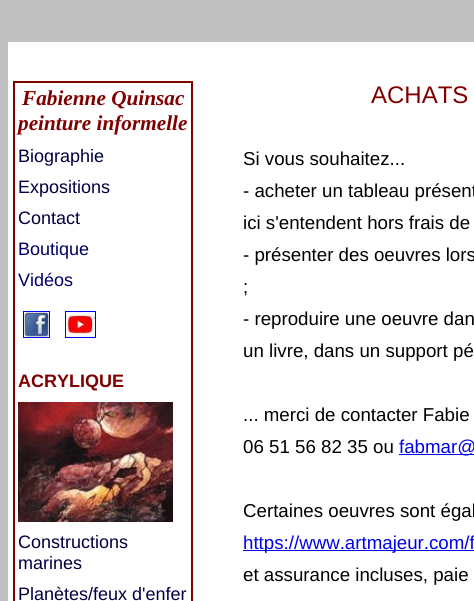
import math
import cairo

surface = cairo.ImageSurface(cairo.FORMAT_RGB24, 474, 601)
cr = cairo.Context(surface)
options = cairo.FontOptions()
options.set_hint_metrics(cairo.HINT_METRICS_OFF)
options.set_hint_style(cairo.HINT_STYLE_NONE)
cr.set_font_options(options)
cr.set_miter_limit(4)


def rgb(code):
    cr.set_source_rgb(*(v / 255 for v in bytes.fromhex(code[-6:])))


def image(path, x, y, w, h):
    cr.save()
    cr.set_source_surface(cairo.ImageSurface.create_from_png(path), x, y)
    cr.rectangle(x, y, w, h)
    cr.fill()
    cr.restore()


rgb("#c0c0c0")
cr.paint()
for x, y, w, h, color in [
    (8, 42, 466, 559, "#ffffff"),
    (13, 81, 180, 2, "#800000"),
    (191, 81, 2, 520, "#800000"),
    (13, 81, 2, 520, "#800000"),
]:
    rgb(color)
    cr.rectangle(x, y, w, h)
    cr.fill()
cr.rectangle(23.5, 311.5, 26, 26)
rgb("#0000ee")
cr.set_line_width(1)
cr.stroke()
cr.rectangle(65.5, 311.5, 30, 26)
cr.stroke()
image("img/1.png", 24, 312, 25, 25)
image("img/2.png", 66, 312, 29, 25)
image("img/3.png", 18, 402, 155, 120)
cr.rectangle(399, 454, 75, 1)
cr.fill()
cr.rectangle(243, 550, 231, 1)
cr.fill()
cr.select_font_face("Liberation Serif", cairo.FONT_SLANT_ITALIC, cairo.FONT_WEIGHT_BOLD)
cr.set_font_size(21.25)
rgb("#800000")
cr.move_to(22, 105)
cr.show_text("Fabienne Quinsac")
cr.move_to(18, 130)
cr.show_text("peinture informelle")
cr.select_font_face("Liberation Sans")
cr.set_font_size(18)
rgb("#000040")
for x, y, s in [
    (18, 162, "Biographie"),
    (18, 193, "Expositions"),
    (18, 224, "Contact"),
]:
    cr.move_to(x, y)
    cr.show_text(s)
rgb("#000066")
cr.move_to(18, 255)
cr.show_text("Boutique")
cr.move_to(18, 286)
cr.show_text("Vidéos")
cr.select_font_face("Liberation Sans", cairo.FONT_SLANT_NORMAL, cairo.FONT_WEIGHT_BOLD)
rgb("#800000")
cr.move_to(18, 387)
cr.show_text("ACRYLIQUE")
cr.select_font_face("Liberation Sans")
rgb("#000040")
for x, y, s in [
    (18, 548, "Constructions"),
    (18, 569, "marines"),
    (18, 600, "Planètes/feux d'enfer"),
]:
    cr.move_to(x, y)
    cr.show_text(s)
cr.set_font_size(24)
rgb("#800000")
cr.move_to(371, 103)
cr.show_text("ACHATS")
cr.set_font_size(18.7)
rgb("#000000")
for x, y, s in [
    (243, 165, "Si vous souhaitez..."),
    (243, 197, "- acheter un tableau présent"),
    (243, 229, "ici s'entendent hors frais de"),
    (243, 261, "- présenter des oeuvres lors"),
    (243, 293, ";"),
    (243, 325, "- reproduire une oeuvre dan"),
    (243, 357, "un livre, dans un support pé"),
    (243, 421, "... merci de contacter Fabie"),
    (243, 453, "06 51 56 82 35 ou"),
]:
    cr.move_to(x, y)
    cr.show_text(s)
rgb("#0000ee")
cr.move_to(399, 453)
cr.show_text("fabmar@")
rgb("#000000")
cr.move_to(243, 517)
cr.show_text("Certaines oeuvres sont égal")
rgb("#0000ee")
cr.move_to(243, 549)
cr.show_text("https://www.artmajeur.com/f")
rgb("#000000")
cr.move_to(243, 581)
cr.show_text("et assurance incluses, paie")
surface.write_to_png("page.png")
